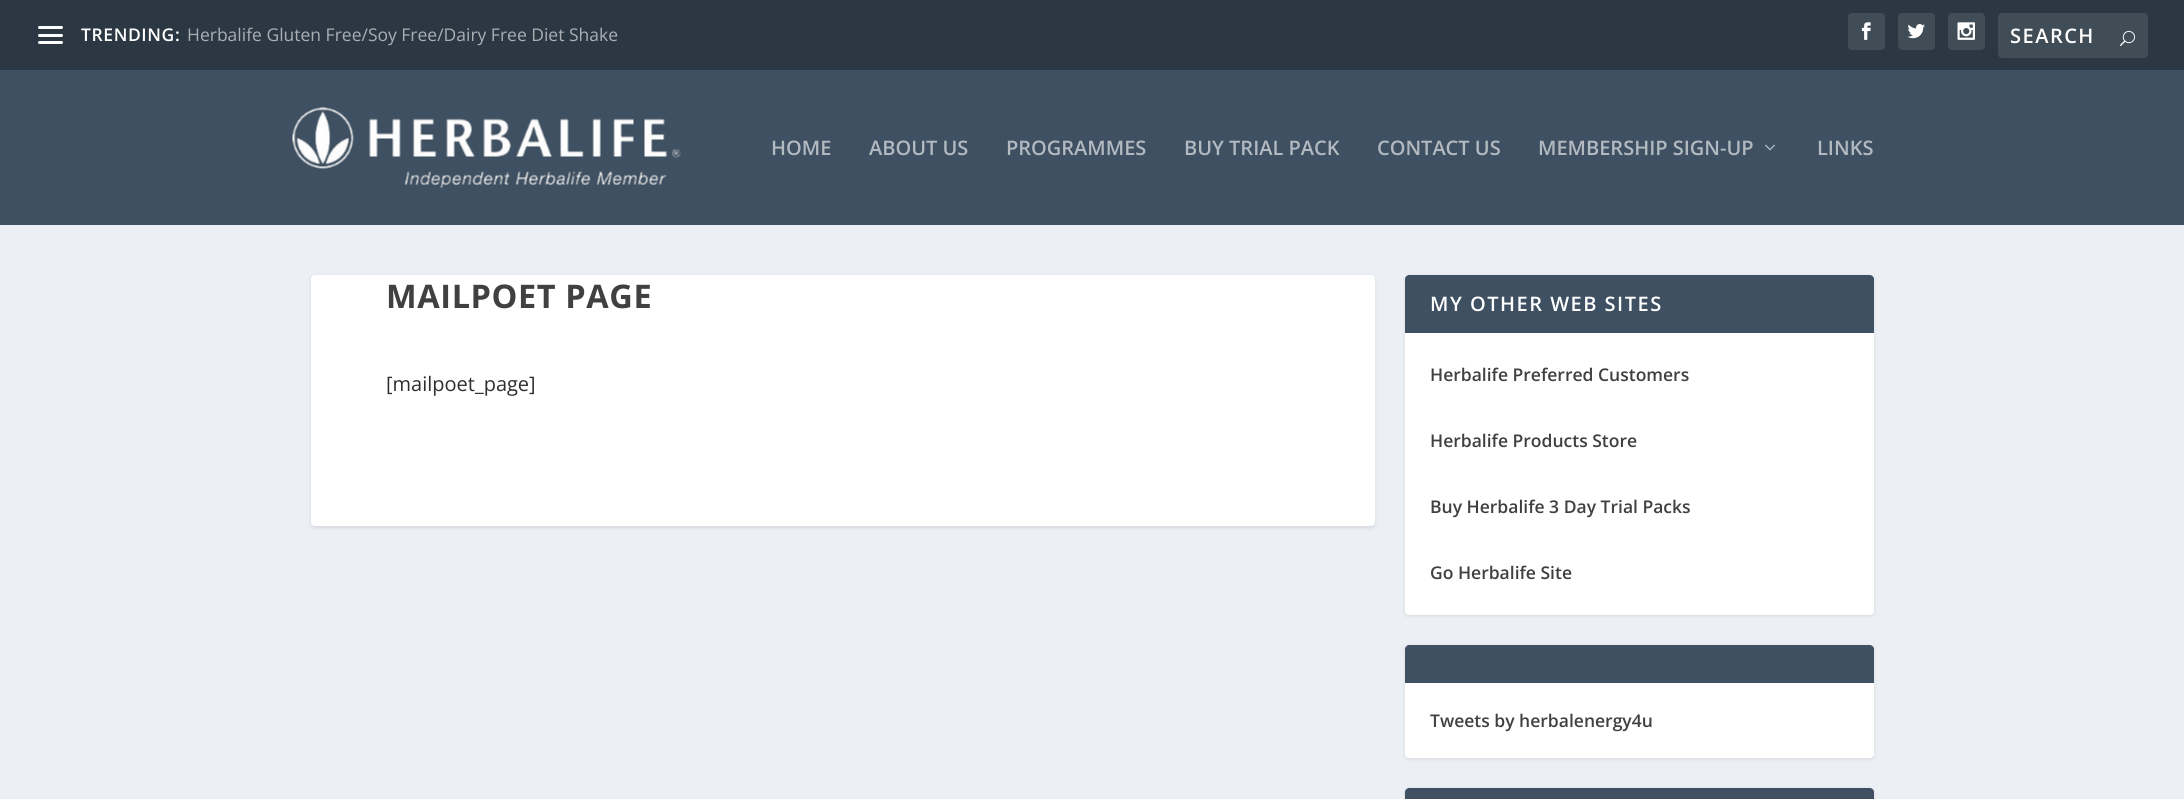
import math
import cairo

surface = cairo.ImageSurface(cairo.FORMAT_RGB24, 2184, 799)
cr = cairo.Context(surface)
options = cairo.FontOptions()
options.set_hint_metrics(cairo.HINT_METRICS_OFF)
options.set_hint_style(cairo.HINT_STYLE_NONE)
cr.set_font_options(options)
cr.set_miter_limit(4)


def rgb(code):
    cr.set_source_rgb(*(v / 255 for v in bytes.fromhex(code[-6:])))


def tracked(x, y, s, letter, word):
    cr.move_to(x, y)
    for ch in s:
        cr.show_text(ch)
        cr.rel_move_to(letter + word * (ch == ' '), 0)


def rrect(x, y, w, h, r):
    cr.new_sub_path()
    for i, (u, v) in enumerate([(x + w - r, y + h - r), (x + r, y + h - r), (x + r, y + r), (x + w - r, y + r)]):
        cr.arc(u, v, r, i * math.pi / 2, (i + 1) * math.pi / 2)
    cr.close_path()


def soft_shadow(x, y, w, h, r, blur, alpha):
    cr.push_group_with_content(cairo.CONTENT_ALPHA)
    cr.set_operator(cairo.OPERATOR_SOURCE)
    for i in range(15, -16, -2):
        e = blur * i / 6
        if min(w, h) + 2 * e > 0:
            cr.set_source_rgba(0, 0, 0, alpha * math.erfc((i - 1) / 8.5) / 2)
            rrect(x - e, y - e, w + 2 * e, h + 2 * e, max(0, min(r + e + blur * .6, min(w, h) / 2 + e)))
            cr.fill()
    cr.mask(cr.pop_group())


def image(path, x, y, w, h):
    cr.save()
    cr.set_source_surface(cairo.ImageSurface.create_from_png(path), x, y)
    cr.rectangle(x, y, w, h)
    cr.fill()
    cr.restore()


rgb("#ecf0f5")
cr.paint()
rgb("#2b3843")
cr.rectangle(0, 0, 2184, 70)
cr.fill()
rgb("#ffffff")
rrect(38, 26, 25, 3, 1.5)
cr.fill()
rrect(38, 34, 25, 3, 1.5)
cr.fill()
rrect(38, 41, 25, 3, 1.5)
cr.fill()
rgb("#404c56")
rrect(1848, 13, 37, 37, 4)
cr.fill()
image("img/1.png", 1861, 22, 10, 18)
rrect(1898, 13, 37, 37, 4)
cr.fill()
image("img/2.png", 1907, 24, 18, 15)
rrect(1948, 13, 37, 37, 4)
cr.fill()
image("img/3.png", 1957, 22, 18, 18)
rrect(1998, 13, 150, 45, 4)
cr.fill()
image("img/4.png", 2120, 30, 15, 16)
rgb("#3e5062")
cr.rectangle(0, 70, 2184, 155)
cr.fill()
image("img/5.png", 292, 107, 389, 81)
image("img/6.png", 1765, 144, 10, 7)
rgb("#000000")
soft_shadow(311, 276, 1064, 252, 4, 2, 0.1)
rgb("#ffffff")
rrect(311, 275, 1064, 251, 4)
cr.fill()
rgb("#000000")
soft_shadow(1405, 276, 469, 340, 4, 2, 0.1)
rgb("#ffffff")
rrect(1405, 275, 469, 340, 4)
cr.fill()
rgb("#3e5062")
cr.new_path()
cr.move_to(1409, 275)
cr.line_to(1870, 275)
cr.curve_to(1872, 275, 1874, 277, 1874, 279)
cr.line_to(1874, 333)
cr.line_to(1405, 333)
cr.line_to(1405, 279)
cr.curve_to(1405, 277, 1407, 275, 1409, 275)
cr.close_path()
cr.fill()
rgb("#000000")
soft_shadow(1405, 646, 469, 113, 4, 2, 0.1)
rgb("#ffffff")
rrect(1405, 645, 469, 113, 4)
cr.fill()
rgb("#3e5062")
cr.new_path()
cr.move_to(1409, 645)
cr.line_to(1870, 645)
cr.curve_to(1872, 645, 1874, 647, 1874, 649)
cr.line_to(1874, 683)
cr.line_to(1405, 683)
cr.line_to(1405, 649)
cr.curve_to(1405, 647, 1407, 645, 1409, 645)
cr.close_path()
cr.fill()
rgb("#000000")
soft_shadow(1405, 789, 469, 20, 4, 2, 0.1)
rgb("#3e5062")
cr.new_path()
cr.move_to(1409, 788)
cr.line_to(1870, 788)
cr.curve_to(1872, 788, 1874, 790, 1874, 792)
cr.line_to(1874, 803)
cr.line_to(1405, 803)
cr.line_to(1405, 792)
cr.curve_to(1405, 790, 1407, 788, 1409, 788)
cr.close_path()
cr.fill()
cr.select_font_face("Open Sans SemiBold")
cr.set_font_size(17.5)
rgb("#ffffff")
tracked(81, 41, "TRENDING:", 0.6, 0)
cr.select_font_face("Open Sans")
rgb("#aaafb4")
cr.move_to(187, 41)
cr.show_text("Herbalife Gluten Free/Soy Free/Dairy Free Diet Shake")
cr.select_font_face("Open Sans SemiBold")
cr.set_font_size(20)
rgb("#ffffff")
tracked(2010, 43, "SEARCH", 1.5, 0)
rgb("#b2b9c0")
for x, y, s in [
    (771, 155, "HOME"),
    (869, 155, "ABOUT US"),
    (1006, 155, "PROGRAMMES"),
    (1184, 155, "BUY TRIAL PACK"),
    (1377, 155, "CONTACT US"),
    (1538, 155, "MEMBERSHIP SIGN-UP"),
    (1817, 155, "LINKS"),
]:
    cr.move_to(x, y)
    cr.show_text(s)
cr.select_font_face("Open Sans", cairo.FONT_SLANT_NORMAL, cairo.FONT_WEIGHT_BOLD)
cr.set_font_size(32.5)
rgb("#404040")
tracked(386, 308, "MAILPOET PAGE", 0.6, 0)
cr.select_font_face("Open Sans")
cr.set_font_size(20)
rgb("#2e2e2e")
cr.move_to(386, 391)
cr.show_text("[mailpoet_page]")
cr.select_font_face("Open Sans SemiBold")
rgb("#ffffff")
tracked(1430, 311, "MY OTHER WEB SITES", 1.5, 0)
cr.set_font_size(17.5)
rgb("#404040")
for x, y, s in [
    (1430, 381, "Herbalife Preferred Customers"),
    (1430, 447, "Herbalife Products Store"),
    (1430, 513, "Buy Herbalife 3 Day Trial Packs"),
    (1430, 579, "Go Herbalife Site"),
    (1430, 727, "Tweets by herbalenergy4u"),
]:
    cr.move_to(x, y)
    cr.show_text(s)
surface.write_to_png("page.png")
